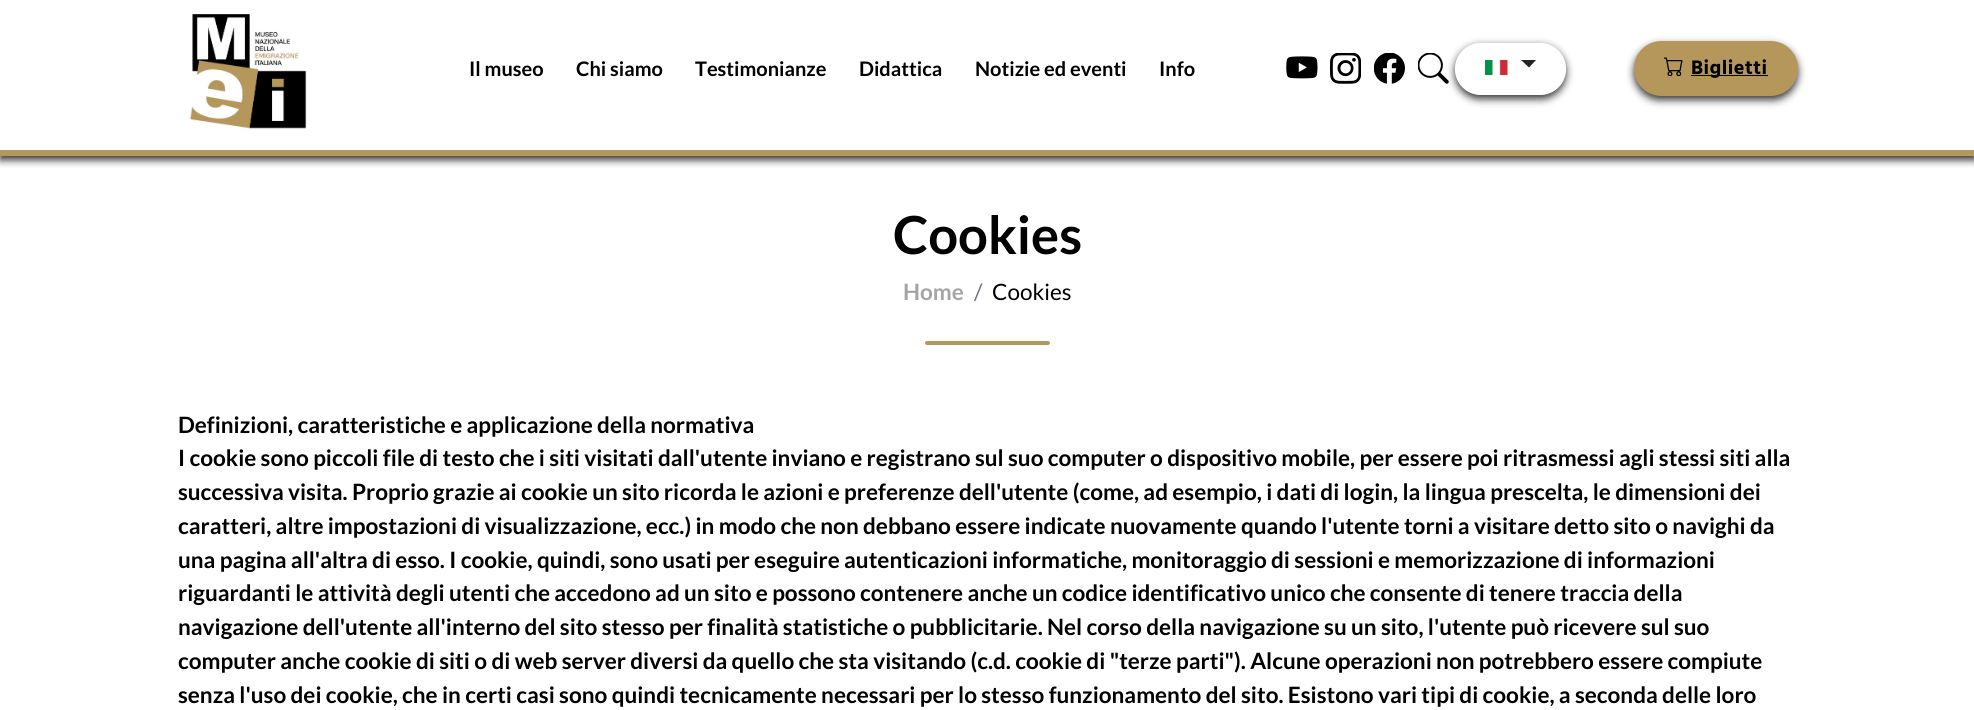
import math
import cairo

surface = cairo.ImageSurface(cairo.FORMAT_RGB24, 1974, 710)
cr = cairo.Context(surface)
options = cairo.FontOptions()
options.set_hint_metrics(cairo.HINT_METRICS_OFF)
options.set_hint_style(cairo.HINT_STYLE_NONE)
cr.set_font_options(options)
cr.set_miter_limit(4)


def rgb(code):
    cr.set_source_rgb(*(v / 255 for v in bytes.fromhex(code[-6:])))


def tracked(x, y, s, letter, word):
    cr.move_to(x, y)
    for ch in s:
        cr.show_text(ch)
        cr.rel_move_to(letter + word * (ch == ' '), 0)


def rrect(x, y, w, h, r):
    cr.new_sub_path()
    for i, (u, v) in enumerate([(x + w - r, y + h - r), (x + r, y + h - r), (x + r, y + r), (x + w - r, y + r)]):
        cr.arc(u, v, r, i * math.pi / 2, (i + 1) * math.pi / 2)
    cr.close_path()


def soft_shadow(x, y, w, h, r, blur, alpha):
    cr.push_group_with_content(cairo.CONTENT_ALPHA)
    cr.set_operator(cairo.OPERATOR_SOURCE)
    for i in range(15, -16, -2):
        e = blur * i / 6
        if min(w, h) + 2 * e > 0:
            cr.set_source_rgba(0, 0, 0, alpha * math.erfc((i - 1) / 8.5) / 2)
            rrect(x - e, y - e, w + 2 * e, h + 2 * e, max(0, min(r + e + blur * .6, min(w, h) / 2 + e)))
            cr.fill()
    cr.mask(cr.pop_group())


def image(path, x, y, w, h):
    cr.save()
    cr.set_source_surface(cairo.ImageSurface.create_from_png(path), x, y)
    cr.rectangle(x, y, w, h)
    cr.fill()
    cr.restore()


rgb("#ffffff")
cr.paint()
cr.save()
cr.rectangle(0, 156, 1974, 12)
cr.clip()
rgb("#000000")
soft_shadow(0, 4, 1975, 156, 0, 4, 0.8)
cr.restore()
rgb("#b5975b")
cr.rectangle(0, 150, 1974, 6)
cr.fill()
image("img/1.png", 190, 14, 117, 115)
image("img/2.png", 1286, 56, 32, 23)
image("img/3.png", 1330, 53, 31, 31)
image("img/4.png", 1374, 53, 31, 31)
image("img/5.png", 1418, 53, 31, 31)
cr.save()
cr.set_fill_rule(cairo.FILL_RULE_EVEN_ODD)
cr.new_path()
cr.move_to(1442, 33)
cr.line_to(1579, 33)
cr.line_to(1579, 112)
cr.line_to(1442, 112)
cr.close_path()
cr.move_to(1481, 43)
cr.line_to(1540, 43)
cr.curve_to(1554.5, 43, 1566, 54.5, 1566, 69)
cr.curve_to(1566, 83.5, 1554.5, 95, 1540, 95)
cr.line_to(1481, 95)
cr.curve_to(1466.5, 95, 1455, 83.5, 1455, 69)
cr.curve_to(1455, 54.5, 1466.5, 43, 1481, 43)
cr.close_path()
cr.clip()
rgb("#000000")
soft_shadow(1455, 46, 111, 53, 26.5, 4, 0.78)
cr.restore()
image("img/6.png", 1485, 60, 23, 15)
rgb("#212529")
cr.new_path()
cr.move_to(1521, 60)
cr.line_to(1536, 60)
cr.line_to(1529, 67.5)
cr.close_path()
cr.fill()
rgb("#000000")
soft_shadow(1634, 45, 164, 55, 27.5, 4, 0.78)
rgb("#b5975b")
rrect(1634, 41, 164, 55, 27.5)
cr.fill()
image("img/7.png", 1664, 57, 19, 19)
rgb("#000000")
cr.rectangle(1691, 75, 77, 1)
cr.fill()
rgb("#b5975b")
rrect(925, 341, 125, 4, 2)
cr.fill()
cr.select_font_face("Lato", cairo.FONT_SLANT_NORMAL, cairo.FONT_WEIGHT_BOLD)
cr.set_font_size(20)
rgb("#000000")
for x, y, s in [
    (469, 76, "Il museo"),
    (576, 76, "Chi siamo"),
    (695, 76, "Testimonianze"),
    (859, 76, "Didattica"),
    (975, 76, "Notizie ed eventi"),
    (1159, 76, "Info"),
]:
    cr.move_to(x, y)
    cr.show_text(s)
cr.select_font_face("Hind", cairo.FONT_SLANT_NORMAL, cairo.FONT_WEIGHT_BOLD)
tracked(1691, 74, "Biglietti", 0.5, 0)
cr.select_font_face("Lato", cairo.FONT_SLANT_NORMAL, cairo.FONT_WEIGHT_BOLD)
cr.set_font_size(52.5)
cr.move_to(893, 254)
cr.show_text("Cookies")
cr.set_font_size(22.5)
rgb("#a5a5a5")
cr.move_to(903, 300)
cr.show_text("Home")
cr.select_font_face("Lato")
rgb("#6c757d")
cr.move_to(974, 300)
cr.show_text("/")
rgb("#000000")
cr.move_to(992, 300)
cr.show_text("Cookies")
cr.select_font_face("Lato", cairo.FONT_SLANT_NORMAL, cairo.FONT_WEIGHT_BOLD)
for x, y, s in [
    (178, 433, "Definizioni, caratteristiche e applicazione della normativa"),
    (178, 466, "I cookie sono piccoli file di testo che i siti visitati dall'utente inviano e registrano sul suo computer o dispositivo mobile, per essere poi ritrasmessi agli stessi siti alla"),
    (178, 500, "successiva visita. Proprio grazie ai cookie un sito ricorda le azioni e preferenze dell'utente (come, ad esempio, i dati di login, la lingua prescelta, le dimensioni dei"),
    (178, 534, "caratteri, altre impostazioni di visualizzazione, ecc.) in modo che non debbano essere indicate nuovamente quando l'utente torni a visitare detto sito o navighi da"),
    (178, 568, "una pagina all'altra di esso. I cookie, quindi, sono usati per eseguire autenticazioni informatiche, monitoraggio di sessioni e memorizzazione di informazioni"),
    (178, 601, "riguardanti le attività degli utenti che accedono ad un sito e possono contenere anche un codice identificativo unico che consente di tenere traccia della"),
    (178, 635, "navigazione dell'utente all'interno del sito stesso per finalità statistiche o pubblicitarie. Nel corso della navigazione su un sito, l'utente può ricevere sul suo"),
    (178, 669, "computer anche cookie di siti o di web server diversi da quello che sta visitando (c.d. cookie di \"terze parti\"). Alcune operazioni non potrebbero essere compiute"),
    (178, 703, "senza l'uso dei cookie, che in certi casi sono quindi tecnicamente necessari per lo stesso funzionamento del sito. Esistono vari tipi di cookie, a seconda delle loro"),
]:
    cr.move_to(x, y)
    cr.show_text(s)
surface.write_to_png("page.png")
